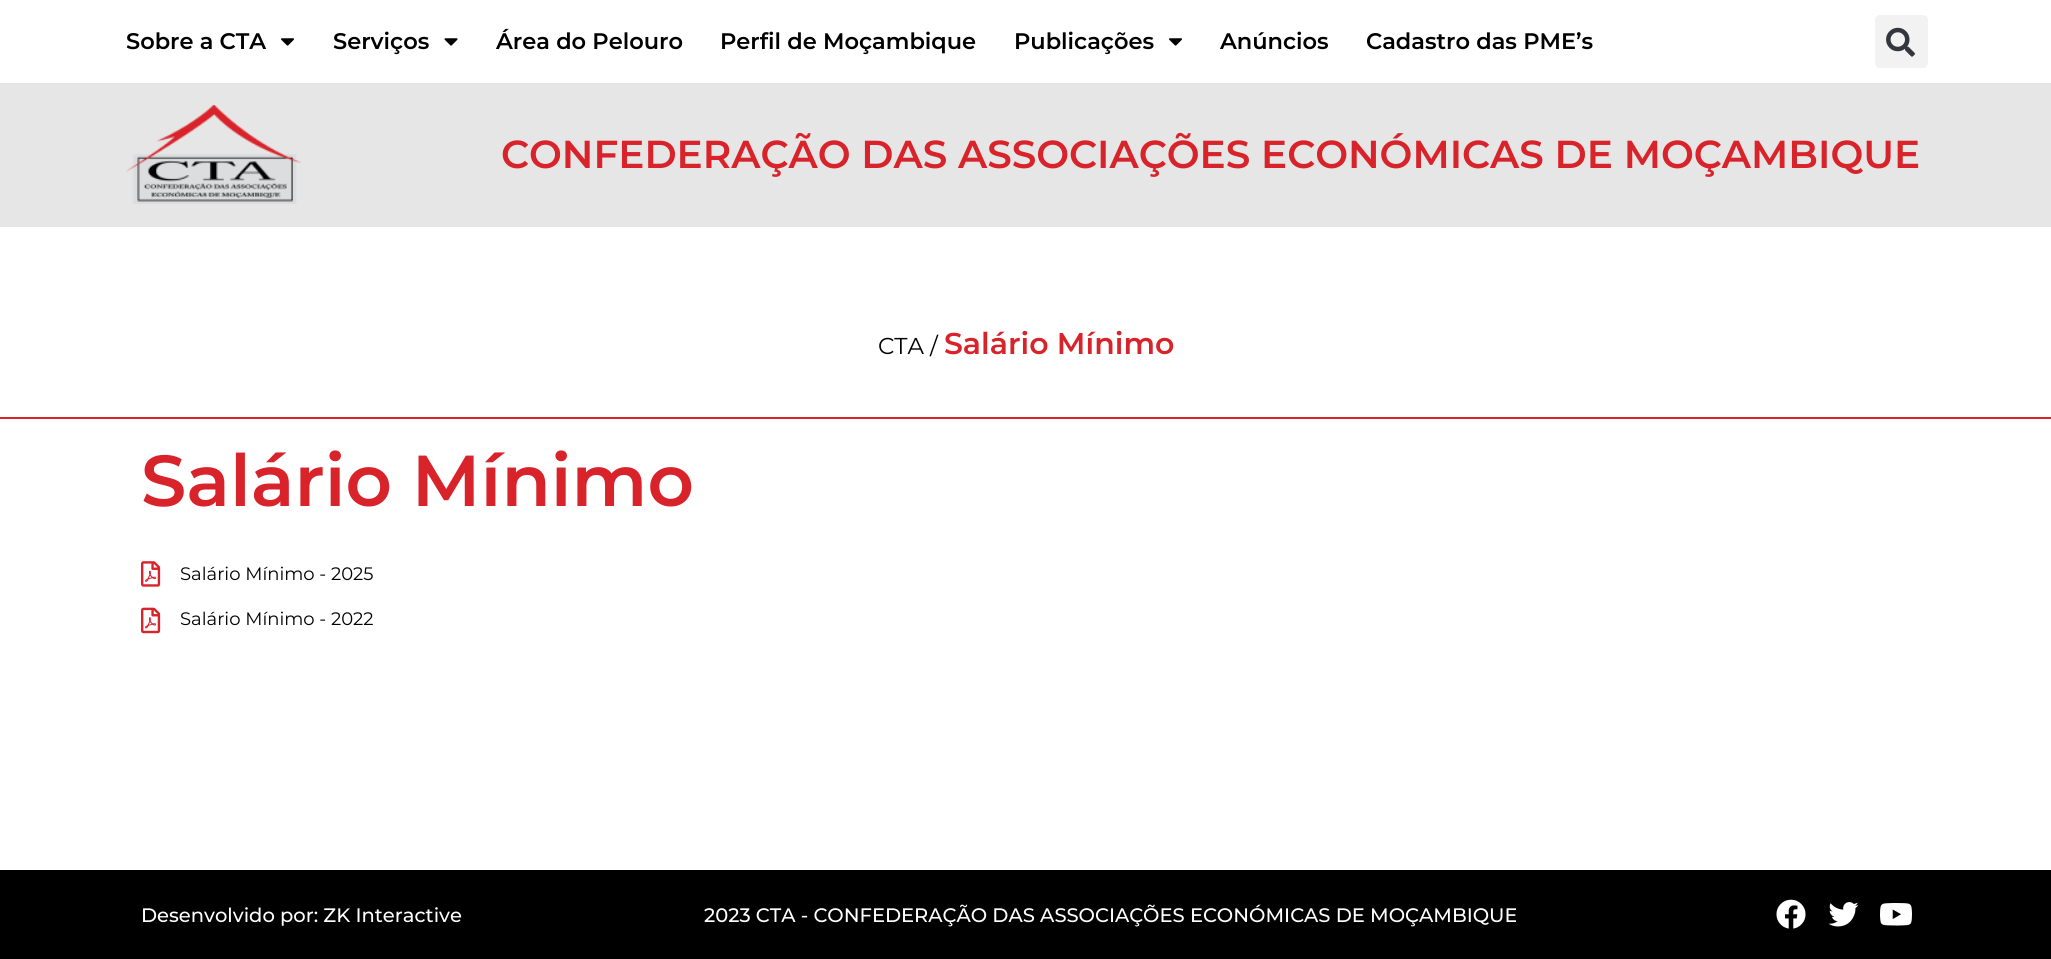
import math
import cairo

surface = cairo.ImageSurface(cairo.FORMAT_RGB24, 2051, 959)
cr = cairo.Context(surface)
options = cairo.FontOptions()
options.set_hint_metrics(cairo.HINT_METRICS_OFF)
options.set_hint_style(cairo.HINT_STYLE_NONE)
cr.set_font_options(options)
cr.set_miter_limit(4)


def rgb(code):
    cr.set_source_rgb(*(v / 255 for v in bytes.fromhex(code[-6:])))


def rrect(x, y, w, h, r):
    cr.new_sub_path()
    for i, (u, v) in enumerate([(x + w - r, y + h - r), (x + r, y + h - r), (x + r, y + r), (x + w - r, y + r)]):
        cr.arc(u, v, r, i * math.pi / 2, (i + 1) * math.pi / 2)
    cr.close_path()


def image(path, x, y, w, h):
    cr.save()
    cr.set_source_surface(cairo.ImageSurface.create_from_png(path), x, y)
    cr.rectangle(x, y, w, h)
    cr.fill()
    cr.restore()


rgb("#ffffff")
cr.paint()
image("img/1.png", 281, 38, 13, 8)
image("img/2.png", 444, 38, 14, 8)
image("img/1.png", 1169, 38, 13, 8)
rgb("#f2f2f2")
rrect(1875, 15, 53, 53, 5)
cr.fill()
image("img/3.png", 1886, 27, 29, 30)
rgb("#e6e6e6")
cr.rectangle(0, 83, 2051, 144)
cr.fill()
image("img/4.png", 126, 105, 176, 99)
rgb("#d8232a")
cr.rectangle(0, 417, 2051, 2)
cr.fill()
image("img/5.png", 141, 561, 20, 26)
image("img/6.png", 141, 607, 20, 27)
rgb("#000000")
cr.rectangle(0, 870, 2051, 89)
cr.fill()
image("img/7.png", 1776, 899, 30, 30)
image("img/8.png", 1828, 902, 31, 25)
image("img/9.png", 1880, 903, 32, 23)
cr.select_font_face("Montserrat SemiBold")
cr.set_font_size(22.5)
for x, y, s in [
    (126, 49, "Sobre a CTA"),
    (333, 49, "Serviços"),
    (496, 49, "Área do Pelouro"),
    (720, 49, "Perfil de Moçambique"),
    (1014, 49, "Publicações"),
    (1220, 49, "Anúncios"),
    (1366, 49, "Cadastro das PME’s"),
]:
    cr.move_to(x, y)
    cr.show_text(s)
cr.set_font_size(39)
rgb("#d8232a")
cr.move_to(501, 168)
cr.show_text("CONFEDERAÇÃO DAS ASSOCIAÇÕES ECONÓMICAS DE MOÇAMBIQUE")
cr.select_font_face("Montserrat")
cr.set_font_size(23)
rgb("#000000")
cr.move_to(878, 354)
cr.show_text("CTA /")
cr.select_font_face("Montserrat SemiBold")
cr.set_font_size(30)
rgb("#d8232a")
cr.move_to(944, 354)
cr.show_text("Salário Mínimo")
cr.set_font_size(72)
cr.move_to(141, 506)
cr.show_text("Salário Mínimo")
cr.select_font_face("Montserrat")
cr.set_font_size(18)
rgb("#000000")
cr.move_to(180, 580)
cr.show_text("Salário Mínimo - 2025")
cr.move_to(180, 625)
cr.show_text("Salário Mínimo - 2022")
cr.select_font_face("Montserrat Medium")
cr.set_font_size(19.5)
rgb("#ffffff")
cr.move_to(141, 922)
cr.show_text("Desenvolvido por: ZK Interactive")
cr.move_to(704, 922)
cr.show_text("2023 CTA - CONFEDERAÇÃO DAS ASSOCIAÇÕES ECONÓMICAS DE MOÇAMBIQUE")
surface.write_to_png("page.png")
